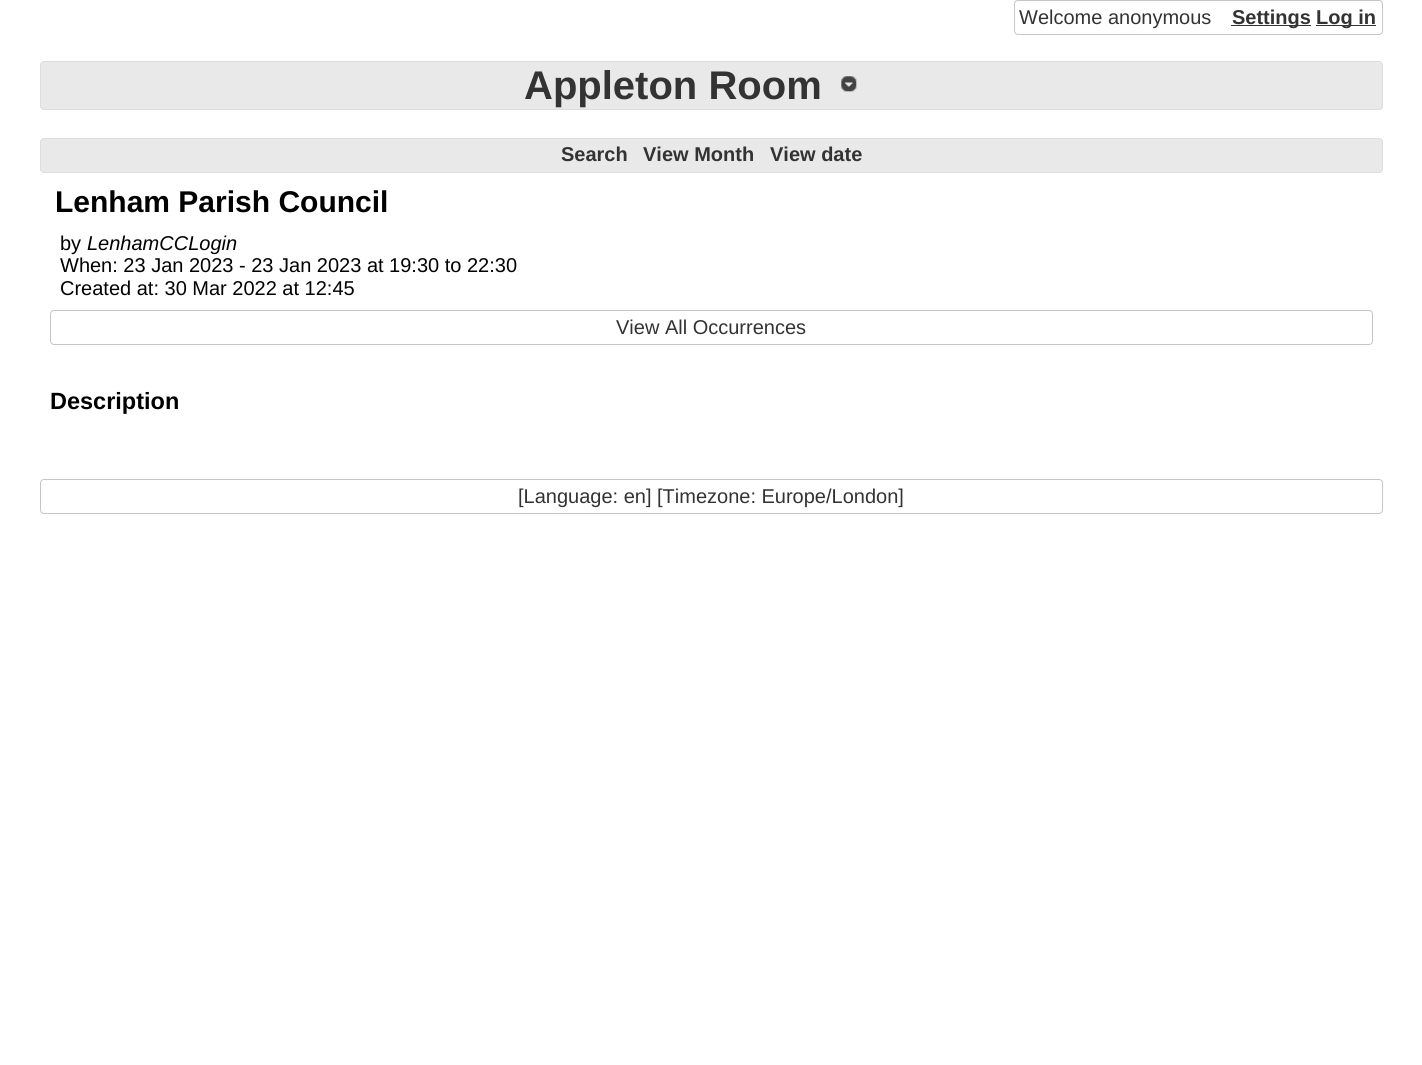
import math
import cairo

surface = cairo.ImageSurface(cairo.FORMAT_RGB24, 1422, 1065)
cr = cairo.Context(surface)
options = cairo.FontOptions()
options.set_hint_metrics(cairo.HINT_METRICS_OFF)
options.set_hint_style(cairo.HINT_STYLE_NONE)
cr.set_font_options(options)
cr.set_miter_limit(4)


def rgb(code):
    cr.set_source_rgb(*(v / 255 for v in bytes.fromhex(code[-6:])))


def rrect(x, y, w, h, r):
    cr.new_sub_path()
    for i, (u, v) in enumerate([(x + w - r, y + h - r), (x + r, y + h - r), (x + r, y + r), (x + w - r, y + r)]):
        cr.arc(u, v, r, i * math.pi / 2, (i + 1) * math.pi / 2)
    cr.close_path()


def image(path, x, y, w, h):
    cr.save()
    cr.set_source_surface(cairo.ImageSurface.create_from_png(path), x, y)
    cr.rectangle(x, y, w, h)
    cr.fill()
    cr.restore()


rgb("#ffffff")
cr.paint()
rrect(1014.5, 0.5, 368, 34, 3.5)
rgb("#c5c5c5")
cr.set_line_width(1)
cr.stroke()
rgb("#333333")
cr.rectangle(1231, 25, 80, 1)
cr.fill()
cr.rectangle(1316, 25, 60, 1)
cr.fill()
rgb("#e9e9e9")
rrect(40.5, 61.5, 1342, 48, 3.5)
cr.fill_preserve()
rgb("#dddddd")
cr.stroke()
image("img/1.png", 841, 76, 16, 16)
rgb("#e9e9e9")
rrect(40.5, 138.5, 1342, 34, 3.5)
cr.fill_preserve()
rgb("#dddddd")
cr.stroke()
rrect(50.5, 310.5, 1322, 34, 3.5)
rgb("#c5c5c5")
cr.stroke()
rrect(40.5, 479.5, 1342, 34, 3.5)
cr.stroke()
cr.select_font_face("Liberation Sans")
cr.set_font_size(20)
rgb("#333333")
cr.move_to(1019, 24)
cr.show_text("Welcome anonymous")
cr.select_font_face("Liberation Sans", cairo.FONT_SLANT_NORMAL, cairo.FONT_WEIGHT_BOLD)
cr.move_to(1232, 24)
cr.show_text("Settings")
cr.move_to(1316, 24)
cr.show_text("Log in")
cr.set_font_size(40)
cr.move_to(524, 99)
cr.show_text("Appleton Room")
cr.set_font_size(20)
for x, y, s in [
    (561, 161, "Search"),
    (643, 161, "View Month"),
    (770, 161, "View date"),
]:
    cr.move_to(x, y)
    cr.show_text(s)
cr.set_font_size(30)
rgb("#000000")
cr.move_to(55, 212)
cr.show_text("Lenham Parish Council")
cr.select_font_face("Liberation Sans")
cr.set_font_size(20)
cr.move_to(60, 250)
cr.show_text("by")
cr.select_font_face("Liberation Sans", cairo.FONT_SLANT_ITALIC)
cr.move_to(87, 250)
cr.show_text("LenhamCCLogin")
cr.select_font_face("Liberation Sans")
cr.move_to(60, 272)
cr.show_text("When: 23 Jan 2023 - 23 Jan 2023 at 19:30 to 22:30")
cr.move_to(60, 295)
cr.show_text("Created at: 30 Mar 2022 at 12:45")
rgb("#333333")
cr.move_to(616, 334)
cr.show_text("View All Occurrences")
cr.select_font_face("Liberation Sans", cairo.FONT_SLANT_NORMAL, cairo.FONT_WEIGHT_BOLD)
cr.set_font_size(23.5)
rgb("#000000")
cr.move_to(50, 409)
cr.show_text("Description")
cr.select_font_face("Liberation Sans")
cr.set_font_size(20)
rgb("#333333")
cr.move_to(518, 503)
cr.show_text("[Language: en] [Timezone: Europe/London]")
surface.write_to_png("page.png")
